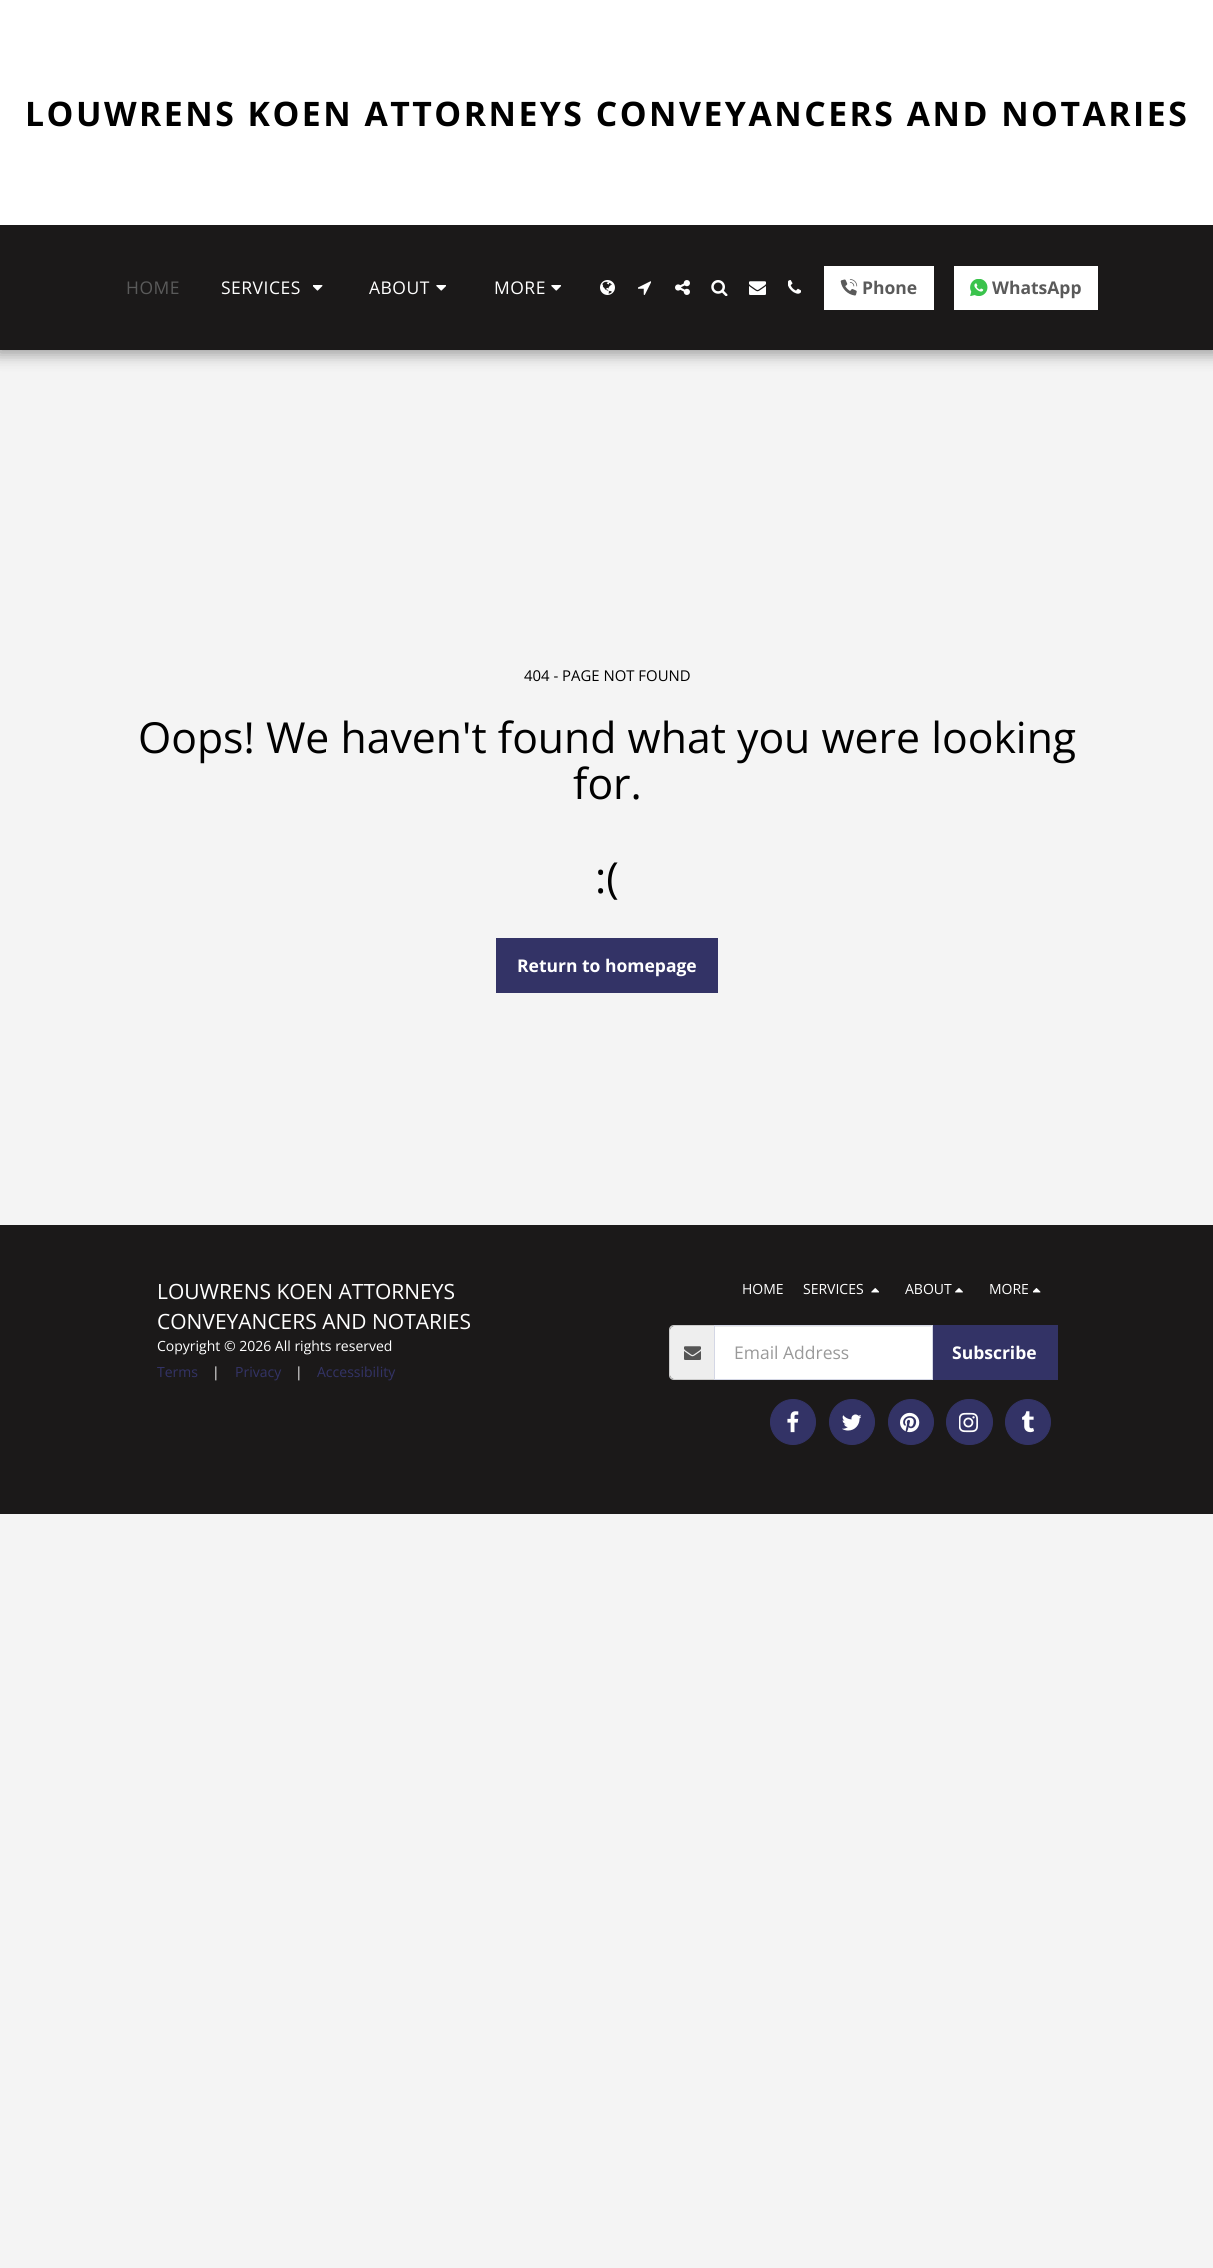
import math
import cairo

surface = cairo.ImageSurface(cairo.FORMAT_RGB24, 1213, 2268)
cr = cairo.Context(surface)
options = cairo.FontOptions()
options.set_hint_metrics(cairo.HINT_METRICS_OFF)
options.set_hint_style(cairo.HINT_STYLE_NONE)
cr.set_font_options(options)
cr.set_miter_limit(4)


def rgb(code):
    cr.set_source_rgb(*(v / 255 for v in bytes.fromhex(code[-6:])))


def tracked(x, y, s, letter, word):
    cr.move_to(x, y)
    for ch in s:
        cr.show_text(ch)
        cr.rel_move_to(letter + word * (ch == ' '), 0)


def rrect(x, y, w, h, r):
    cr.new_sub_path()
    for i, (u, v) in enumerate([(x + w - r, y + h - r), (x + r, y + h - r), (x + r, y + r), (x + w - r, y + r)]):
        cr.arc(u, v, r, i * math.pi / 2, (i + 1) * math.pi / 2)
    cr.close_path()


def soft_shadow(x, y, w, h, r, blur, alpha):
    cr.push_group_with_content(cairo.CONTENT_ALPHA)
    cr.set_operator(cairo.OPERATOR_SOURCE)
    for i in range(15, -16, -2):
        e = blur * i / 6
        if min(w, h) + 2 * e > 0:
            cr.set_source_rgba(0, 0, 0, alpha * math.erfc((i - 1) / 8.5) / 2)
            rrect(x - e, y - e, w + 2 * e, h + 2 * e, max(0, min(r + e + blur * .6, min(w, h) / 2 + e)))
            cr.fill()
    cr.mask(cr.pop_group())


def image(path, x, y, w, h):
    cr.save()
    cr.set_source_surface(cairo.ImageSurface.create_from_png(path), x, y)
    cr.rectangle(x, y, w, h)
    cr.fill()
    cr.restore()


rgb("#f4f4f4")
cr.paint()
rgb("#000000")
soft_shadow(-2, 0, 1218, 355, 0, 7.5, 0.35)
rgb("#1b1919")
cr.rectangle(0, 225, 1213, 125)
cr.fill()
rgb("#ffffff")
cr.rectangle(0, 0, 1213, 225)
cr.fill()
image("img/1.png", 313, 285, 10, 6)
image("img/2.png", 436, 285, 10, 6)
image("img/2.png", 551, 285, 10, 6)
image("img/3.png", 600, 280, 15, 15)
image("img/4.png", 638, 281, 13, 14)
image("img/5.png", 675, 280, 15, 15)
image("img/6.png", 711, 280, 17, 16)
image("img/7.png", 749, 281, 17, 14)
image("img/8.png", 788, 280, 13, 14)
cr.rectangle(824, 266, 110, 44)
cr.fill()
image("img/9.png", 840, 279, 18, 17)
cr.rectangle(954, 266, 144, 44)
cr.fill()
image("img/10.png", 970, 279, 18, 17)
rgb("#333366")
cr.rectangle(496, 938, 222, 55)
cr.fill()
rgb("#1b1919")
cr.rectangle(0, 1225, 1213, 289)
cr.fill()
image("img/11.png", 871, 1288, 8, 5)
image("img/12.png", 955, 1288, 8, 5)
image("img/13.png", 1033, 1288, 8, 5)
rgb("#eeeeee")
cr.new_path()
cr.move_to(674, 1326)
cr.line_to(714, 1326)
cr.line_to(714, 1379)
cr.line_to(674, 1379)
cr.curve_to(672, 1379, 670, 1377, 670, 1375)
cr.line_to(670, 1330)
cr.curve_to(670, 1328, 672, 1326, 674, 1326)
cr.close_path()
cr.fill()
rgb("#cccccc")
cr.set_fill_rule(cairo.FILL_RULE_EVEN_ODD)
cr.new_path()
cr.move_to(674, 1325)
cr.line_to(714, 1325)
cr.line_to(714, 1380)
cr.line_to(674, 1380)
cr.curve_to(671, 1380, 669, 1378, 669, 1375)
cr.line_to(669, 1330)
cr.curve_to(669, 1327, 671, 1325, 674, 1325)
cr.close_path()
cr.move_to(674, 1326)
cr.line_to(714, 1326)
cr.line_to(714, 1379)
cr.line_to(674, 1379)
cr.curve_to(672, 1379, 670, 1377, 670, 1375)
cr.line_to(670, 1330)
cr.curve_to(670, 1328, 672, 1326, 674, 1326)
cr.close_path()
cr.fill()
image("img/14.png", 684, 1346, 17, 14)
rgb("#ffffff")
cr.rectangle(715, 1326, 217, 53)
cr.fill()
rgb("#ececec")
cr.rectangle(715, 1326, 216, 1)
cr.fill()
cr.rectangle(714.5, 1325.5, 218, 54)
rgb("#d4d7e5")
cr.set_line_width(1)
cr.stroke()
rgb("#333366")
cr.rectangle(933, 1325, 125, 55)
cr.fill()
cr.arc(793, 1422, 22.5, 0, 2 * math.pi)
cr.fill_preserve()
cr.stroke()
image("img/15.png", 787, 1411, 12, 22)
cr.arc(852, 1422, 22.5, 0, 2 * math.pi)
cr.fill_preserve()
cr.stroke()
image("img/16.png", 842, 1414, 19, 17)
cr.arc(911, 1422, 22.5, 0, 2 * math.pi)
cr.fill_preserve()
cr.stroke()
image("img/17.png", 900, 1412, 20, 21)
rrect(946.5, 1399.5, 46, 45, 22.5)
cr.fill_preserve()
cr.stroke()
image("img/18.png", 959, 1412, 19, 21)
cr.arc(1028, 1422, 22.5, 0, 2 * math.pi)
cr.fill_preserve()
cr.stroke()
image("img/19.png", 1022, 1411, 12, 22)
cr.select_font_face("Open Sans", cairo.FONT_SLANT_NORMAL, cairo.FONT_WEIGHT_BOLD)
cr.set_font_size(33.75)
rgb("#000000")
tracked(25, 126, "LOUWRENS KOEN ATTORNEYS CONVEYANCERS AND NOTARIES", 2.5, 0)
cr.select_font_face("Open Sans")
cr.set_font_size(17.5)
rgb("#5a5a5a")
tracked(126, 294, "HOME", 0.5, 0)
rgb("#ffffff")
for x, y, s in [
    (221, 294, "SERVICES"),
    (369, 294, "ABOUT"),
    (494, 294, "MORE"),
]:
    tracked(x, y, s, 0.5, 0)
cr.select_font_face("Open Sans", cairo.FONT_SLANT_NORMAL, cairo.FONT_WEIGHT_BOLD)
rgb("#5a5a5a")
cr.move_to(862, 294)
cr.show_text("Phone")
cr.move_to(992, 294)
cr.show_text("WhatsApp")
cr.select_font_face("Open Sans")
cr.set_font_size(14.9)
rgb("#000000")
cr.move_to(524, 681)
cr.show_text("404 - PAGE NOT FOUND")
cr.set_font_size(42.75)
for x, y, s in [
    (138, 753, "Oops! We haven't found what you were looking"),
    (573, 799, "for."),
    (595, 893, ":("),
]:
    cr.move_to(x, y)
    cr.show_text(s)
cr.select_font_face("Open Sans", cairo.FONT_SLANT_NORMAL, cairo.FONT_WEIGHT_BOLD)
cr.set_font_size(17.5)
rgb("#ffffff")
cr.move_to(517, 972)
cr.show_text("Return to homepage")
cr.select_font_face("Open Sans")
cr.set_font_size(21)
cr.move_to(157, 1299)
cr.show_text("LOUWRENS KOEN ATTORNEYS")
cr.move_to(157, 1329)
cr.show_text("CONVEYANCERS AND NOTARIES")
cr.set_font_size(14)
cr.move_to(157, 1351)
cr.show_text("Copyright © 2026 All rights reserved")
rgb("#333366")
cr.move_to(157, 1377)
cr.show_text("Terms")
rgb("#ffffff")
cr.move_to(212, 1377)
cr.show_text("|")
rgb("#333366")
cr.move_to(235, 1377)
cr.show_text("Privacy")
rgb("#ffffff")
cr.move_to(295, 1377)
cr.show_text("|")
rgb("#333366")
cr.move_to(317, 1377)
cr.show_text("Accessibility")
rgb("#ffffff")
for x, y, s in [
    (742, 1294, "HOME"),
    (803, 1294, "SERVICES"),
    (905, 1294, "ABOUT"),
    (989, 1294, "MORE"),
]:
    cr.move_to(x, y)
    cr.show_text(s)
cr.set_font_size(17.5)
rgb("#999999")
cr.move_to(734, 1359)
cr.show_text("Email Address")
cr.select_font_face("Open Sans", cairo.FONT_SLANT_NORMAL, cairo.FONT_WEIGHT_BOLD)
rgb("#ffffff")
cr.move_to(952, 1359)
cr.show_text("Subscribe")
surface.write_to_png("page.png")
